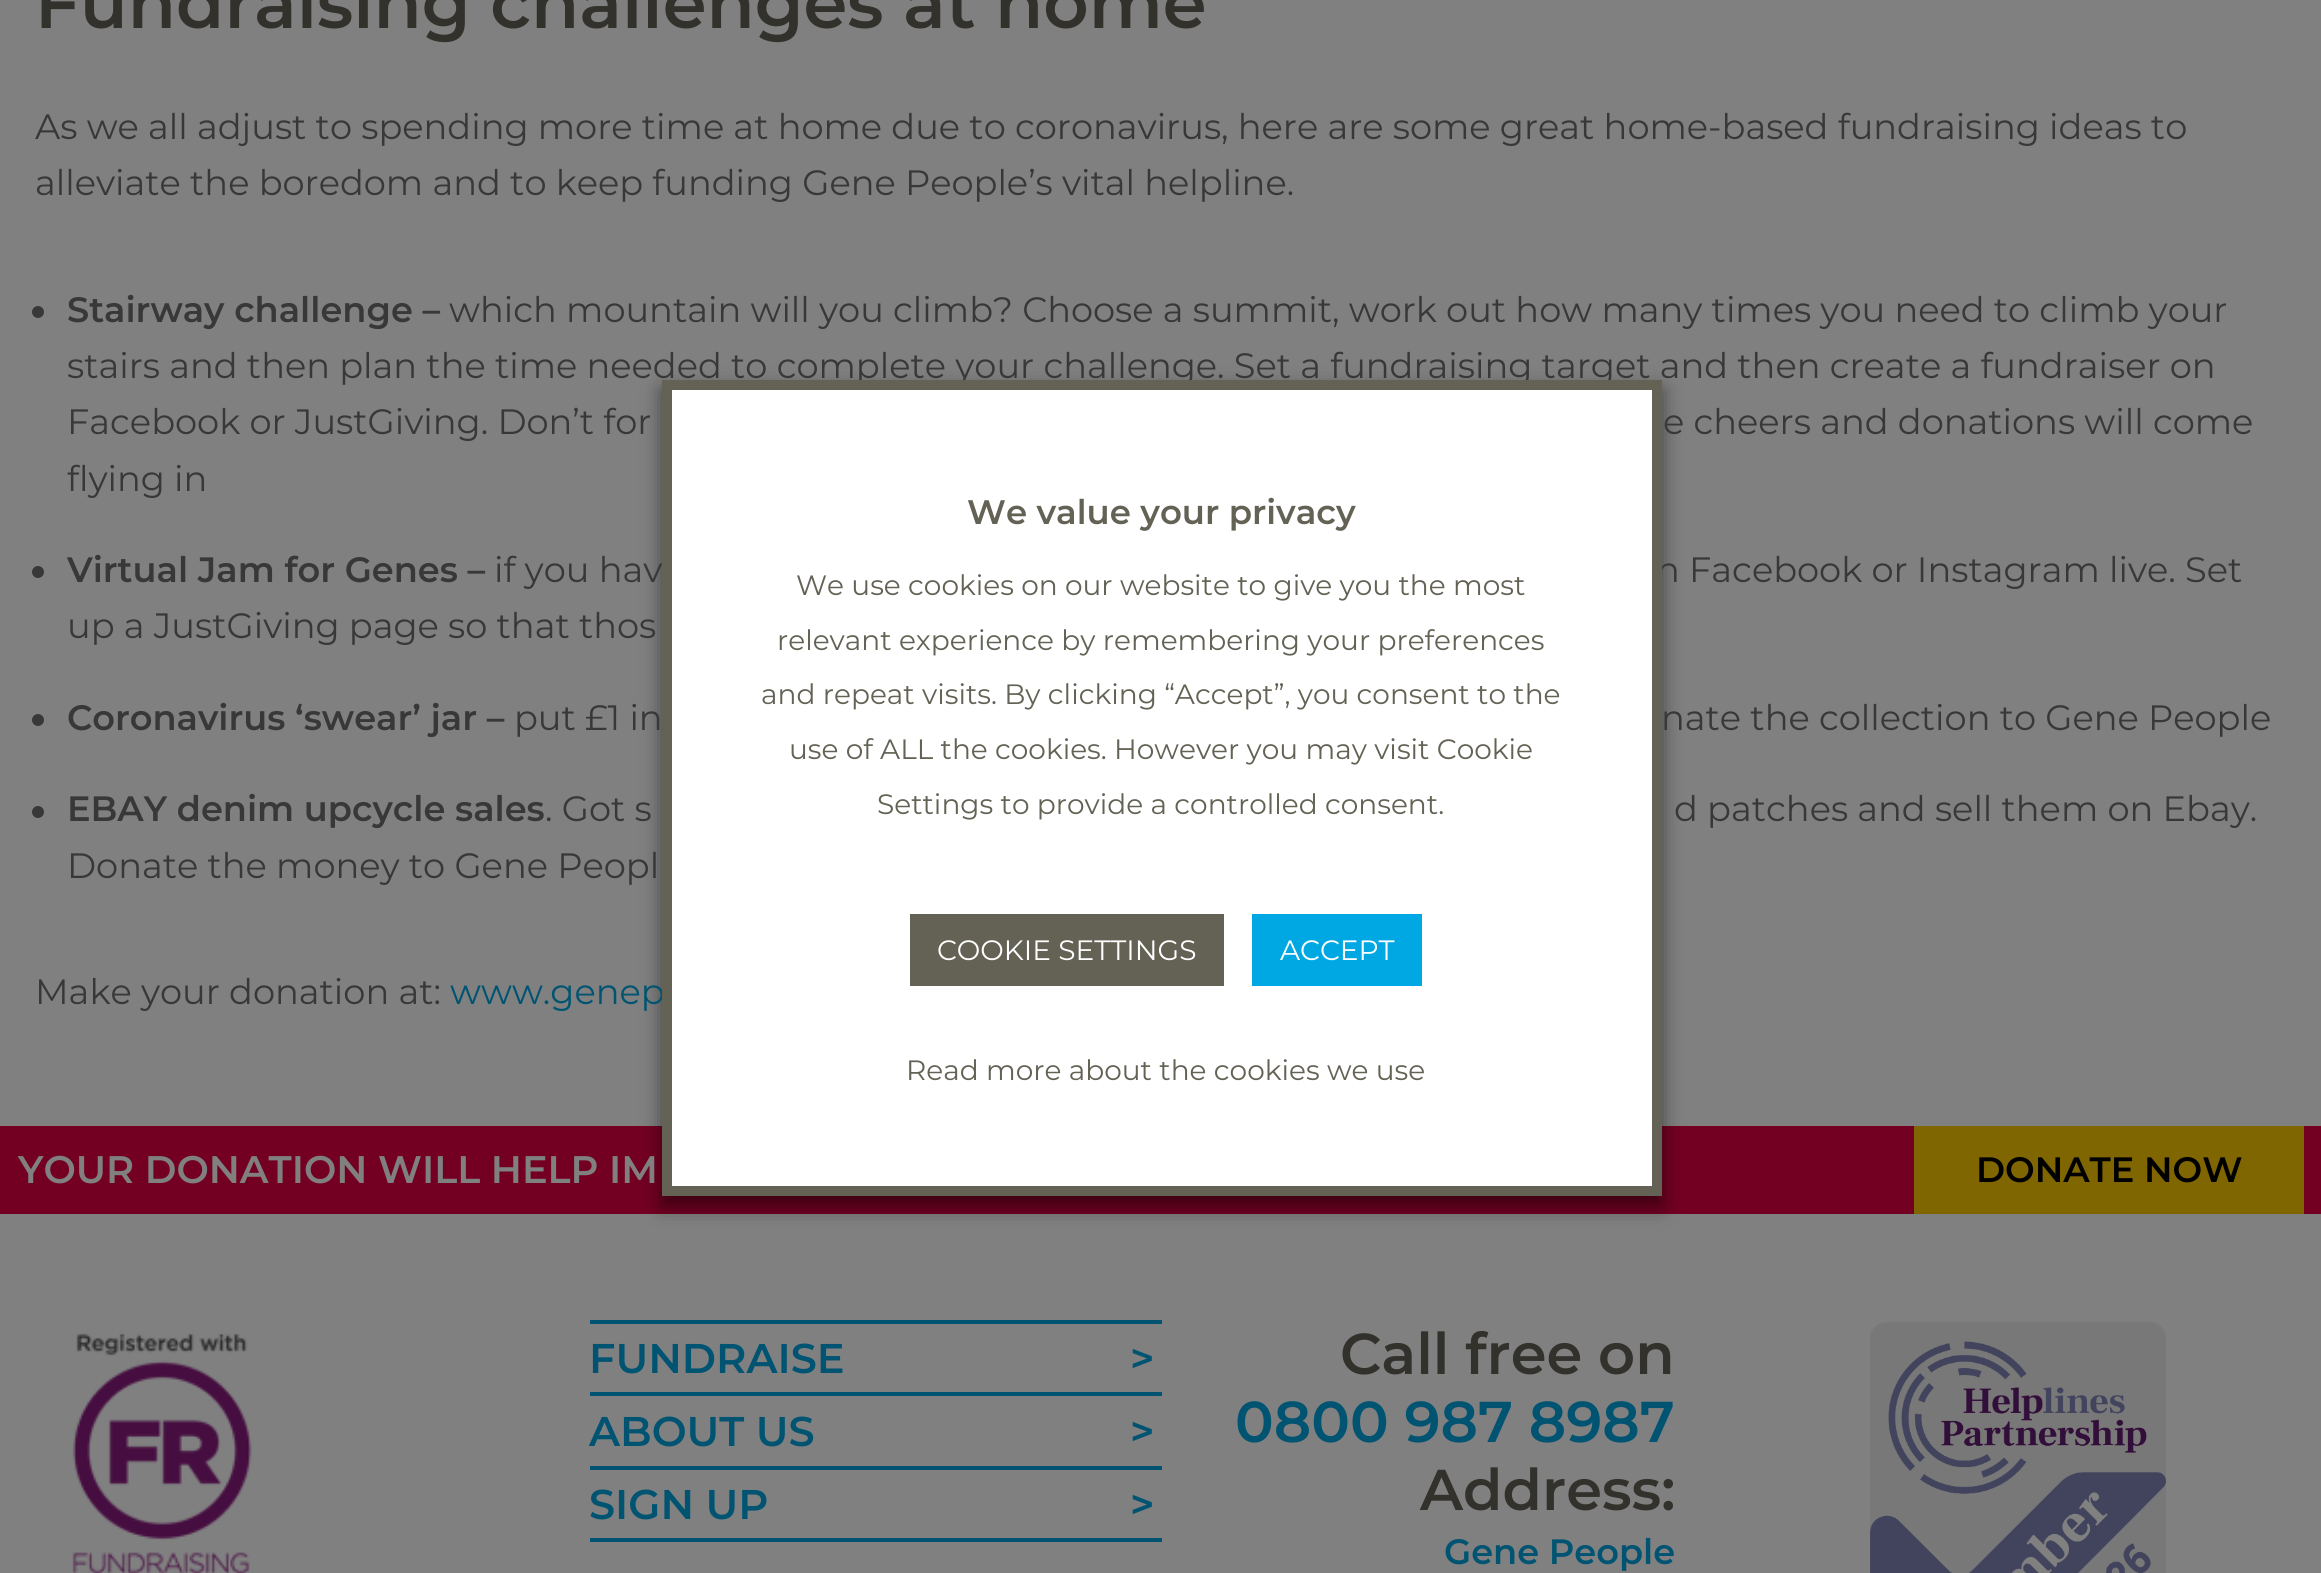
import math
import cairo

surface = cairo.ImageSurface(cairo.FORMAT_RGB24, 2321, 1573)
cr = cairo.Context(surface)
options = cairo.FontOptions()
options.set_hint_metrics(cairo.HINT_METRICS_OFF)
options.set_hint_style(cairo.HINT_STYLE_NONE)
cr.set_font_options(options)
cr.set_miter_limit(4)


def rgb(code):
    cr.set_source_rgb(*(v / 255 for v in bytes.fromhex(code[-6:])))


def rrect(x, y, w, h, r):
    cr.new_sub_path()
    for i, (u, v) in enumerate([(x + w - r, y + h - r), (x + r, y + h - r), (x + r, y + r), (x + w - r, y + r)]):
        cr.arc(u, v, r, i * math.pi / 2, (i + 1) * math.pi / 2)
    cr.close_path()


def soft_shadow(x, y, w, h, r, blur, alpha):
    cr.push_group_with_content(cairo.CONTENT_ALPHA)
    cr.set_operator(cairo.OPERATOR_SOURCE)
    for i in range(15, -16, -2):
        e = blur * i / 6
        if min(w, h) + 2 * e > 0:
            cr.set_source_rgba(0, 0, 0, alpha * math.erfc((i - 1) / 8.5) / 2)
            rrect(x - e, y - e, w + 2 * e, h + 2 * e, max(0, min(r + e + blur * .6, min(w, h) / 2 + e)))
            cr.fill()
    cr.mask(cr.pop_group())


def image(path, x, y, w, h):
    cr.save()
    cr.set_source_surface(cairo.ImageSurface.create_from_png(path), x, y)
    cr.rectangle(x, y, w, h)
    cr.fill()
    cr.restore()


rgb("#808080")
cr.paint()
rgb("#383838")
cr.arc(38, 312, 6, 0, 2 * math.pi)
cr.fill()
cr.arc(38, 572, 6, 0, 2 * math.pi)
cr.fill()
cr.arc(38, 720, 6, 0, 2 * math.pi)
cr.fill()
cr.arc(38, 812, 6, 0, 2 * math.pi)
cr.fill()
rgb("#730023")
cr.rectangle(0, 1126, 2321, 88)
cr.fill()
rgb("#806600")
cr.rectangle(1914, 1126, 390, 88)
cr.fill()
image("img/1.png", 72, 1333, 180, 240)
for x, y, w, h, color in [
    (590, 1320, 572, 4, "#005472"),
    (590, 1392, 572, 4, "#005472"),
    (590, 1466, 572, 4, "#005472"),
    (590, 1538, 572, 4, "#005472"),
]:
    rgb(color)
    cr.rectangle(x, y, w, h)
    cr.fill()
image("img/2.png", 1870, 1322, 297, 251)
rgb("#000000")
soft_shadow(662, 390, 1000, 816, 0, 10, 0.5)
cr.select_font_face("Montserrat SemiBold")
cr.set_font_size(70.4)
rgb("#32312b")
cr.move_to(35, 28)
cr.show_text("Fundraising challenges at home")
cr.select_font_face("Montserrat")
cr.set_font_size(35.2)
rgb("#383838")
cr.move_to(35, 139)
cr.show_text("As we all adjust to spending more time at home due to coronavirus, here are some great home-based fundraising ideas to")
cr.move_to(35, 195)
cr.show_text("alleviate the boredom and to keep funding Gene People’s vital helpline.")
cr.select_font_face("Montserrat SemiBold")
cr.move_to(67, 322)
cr.show_text("Stairway challenge –")
cr.select_font_face("Montserrat")
for x, y, s in [
    (449, 322, "which mountain will you climb? Choose a summit, work out how many times you need to climb your"),
    (67, 378, "stairs and then plan the time needed to complete your challenge. Set a fundraising target and then create a fundraiser on"),
    (67, 434, "Facebook or JustGiving. Don’t for"),
    (1663, 434, "e cheers and donations will come"),
    (67, 491, "flying in"),
]:
    cr.move_to(x, y)
    cr.show_text(s)
cr.select_font_face("Montserrat SemiBold")
cr.move_to(67, 582)
cr.show_text("Virtual Jam for Genes –")
cr.select_font_face("Montserrat")
for x, y, s in [
    (494, 582, "if you hav"),
    (1656, 582, "h Facebook or Instagram live. Set"),
    (67, 638, "up a JustGiving page so that thos"),
]:
    cr.move_to(x, y)
    cr.show_text(s)
cr.select_font_face("Montserrat SemiBold")
cr.move_to(67, 730)
cr.show_text("Coronavirus ‘swear’ jar –")
cr.select_font_face("Montserrat")
cr.move_to(514, 730)
cr.show_text("put £1 in")
cr.move_to(1661, 730)
cr.show_text("nate the collection to Gene People")
cr.select_font_face("Montserrat SemiBold")
cr.move_to(67, 821)
cr.show_text("EBAY denim upcycle sales")
cr.select_font_face("Montserrat")
for x, y, s in [
    (545, 821, ". Got s"),
    (1674, 821, "d patches and sell them on Ebay."),
    (67, 878, "Donate the money to Gene Peopl"),
    (35, 1004, "Make your donation at:"),
]:
    cr.move_to(x, y)
    cr.show_text(s)
rgb("#005472")
cr.move_to(450, 1004)
cr.show_text("www.genep")
cr.select_font_face("Montserrat SemiBold")
cr.set_font_size(38.4)
rgb("#808080")
cr.move_to(18, 1183)
cr.show_text("YOUR DONATION WILL HELP IM")
cr.set_font_size(35.2)
rgb("#000000")
cr.move_to(1976, 1182)
cr.show_text("DONATE NOW")
cr.set_font_size(41.5)
rgb("#005472")
for x, y, s in [
    (589, 1373, "FUNDRAISE"),
    (1130, 1373, ">"),
    (589, 1446, "ABOUT US"),
    (1130, 1446, ">"),
    (589, 1519, "SIGN UP"),
    (1130, 1519, ">"),
]:
    cr.move_to(x, y)
    cr.show_text(s)
cr.set_font_size(57.5)
rgb("#32312b")
cr.move_to(1340, 1374)
cr.show_text("Call free on")
rgb("#005472")
cr.move_to(1235, 1442)
cr.show_text("0800 987 8987")
rgb("#32312b")
cr.move_to(1420, 1510)
cr.show_text("Address:")
cr.set_font_size(35.2)
rgb("#005472")
cr.move_to(1444, 1564)
cr.show_text("Gene People")
rgb("#ffffff")
cr.rectangle(667, 385, 990, 806)
cr.fill_preserve()
rgb("#636255")
cr.set_line_width(10)
cr.stroke()
cr.set_font_size(34)
cr.move_to(967, 524)
cr.show_text("We value your privacy")
cr.select_font_face("Montserrat")
cr.set_font_size(28)
for x, y, s in [
    (796, 595, "We use cookies on our website to give you the most"),
    (777, 650, "relevant experience by remembering your preferences"),
    (761, 704, "and repeat visits. By clicking “Accept”, you consent to the"),
    (789, 759, "use of ALL the cookies. However you may visit Cookie"),
    (877, 814, "Settings to provide a controlled consent."),
]:
    cr.move_to(x, y)
    cr.show_text(s)
cr.rectangle(910, 914, 314, 72)
cr.fill()
rgb("#ffffff")
cr.move_to(937, 960)
cr.show_text("COOKIE SETTINGS")
rgb("#00a8e3")
cr.rectangle(1252, 914, 170, 72)
cr.fill()
rgb("#ffffff")
cr.move_to(1280, 960)
cr.show_text("ACCEPT")
rgb("#636255")
cr.move_to(906, 1080)
cr.show_text("Read more about the cookies we use")
surface.write_to_png("page.png")
